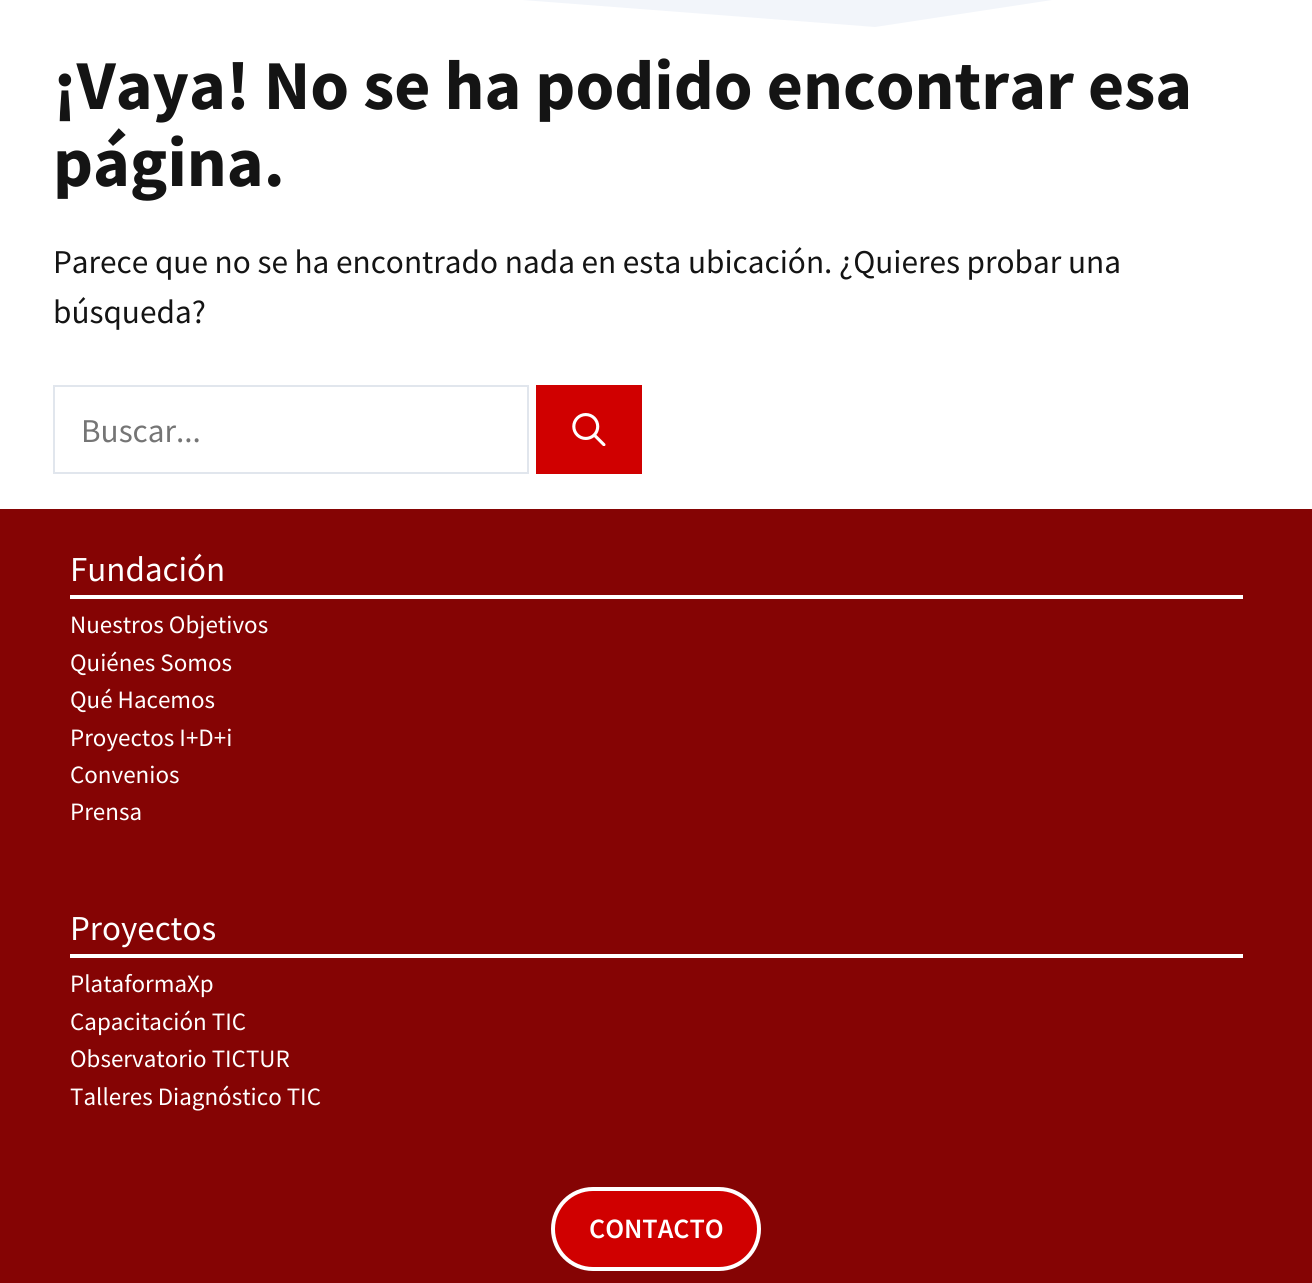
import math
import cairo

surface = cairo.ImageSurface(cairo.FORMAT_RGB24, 1312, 1283)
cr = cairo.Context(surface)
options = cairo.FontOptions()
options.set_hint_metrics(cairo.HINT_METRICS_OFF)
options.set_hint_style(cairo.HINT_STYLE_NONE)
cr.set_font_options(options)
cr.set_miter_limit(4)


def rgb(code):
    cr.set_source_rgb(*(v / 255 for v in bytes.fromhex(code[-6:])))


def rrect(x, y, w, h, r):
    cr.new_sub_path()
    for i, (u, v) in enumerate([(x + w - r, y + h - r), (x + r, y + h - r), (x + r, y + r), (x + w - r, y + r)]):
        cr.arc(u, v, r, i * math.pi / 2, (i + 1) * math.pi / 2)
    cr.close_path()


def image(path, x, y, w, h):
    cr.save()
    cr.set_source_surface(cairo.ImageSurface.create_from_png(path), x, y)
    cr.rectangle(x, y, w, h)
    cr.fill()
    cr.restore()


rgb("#ffffff")
cr.paint()
rgb("#f2f5fa")
cr.rectangle(522, 0, 530, 27)
cr.fill()
rgb("#ffffff")
cr.new_path()
cr.move_to(-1, 47)
cr.line_to(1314, 47)
cr.line_to(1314, -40)
cr.line_to(875, 27)
cr.line_to(-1, -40)
cr.close_path()
cr.fill()
cr.rectangle(54, 386, 474, 87)
rgb("#e1e6ed")
cr.stroke()
rgb("#d00000")
cr.rectangle(536, 385, 106, 89)
cr.fill()
image("img/1.png", 572, 413, 34, 33)
for x, y, w, h, color in [
    (0, 509, 1312, 774, "#850404"),
    (70, 595, 1173, 4, "#ffffff"),
    (70, 954, 1173, 4, "#ffffff"),
]:
    rgb(color)
    cr.rectangle(x, y, w, h)
    cr.fill()
rgb("#d00000")
rrect(553, 1189, 206, 80, 40)
cr.fill_preserve()
rgb("#ffffff")
cr.set_line_width(4)
cr.stroke()
cr.select_font_face("Source Sans Pro", cairo.FONT_SLANT_NORMAL, cairo.FONT_WEIGHT_BOLD)
cr.set_font_size(70)
rgb("#141414")
cr.move_to(53, 109)
cr.show_text("¡Vaya! No se ha podido encontrar esa")
cr.move_to(53, 186)
cr.show_text("página.")
cr.select_font_face("Source Sans Pro")
cr.set_font_size(33.25)
cr.move_to(53, 273)
cr.show_text("Parece que no se ha encontrado nada en esta ubicación. ¿Quieres probar una")
cr.move_to(53, 323)
cr.show_text("búsqueda?")
rgb("#757575")
cr.move_to(81, 442)
cr.show_text("Buscar...")
cr.set_font_size(35)
rgb("#ffffff")
cr.move_to(70, 581)
cr.show_text("Fundación")
cr.set_font_size(25)
for x, y, s in [
    (70, 633, "Nuestros Objetivos"),
    (70, 671, "Quiénes Somos"),
    (70, 708, "Qué Hacemos"),
    (70, 746, "Proyectos I+D+i"),
    (70, 783, "Convenios"),
    (70, 820, "Prensa"),
]:
    cr.move_to(x, y)
    cr.show_text(s)
cr.set_font_size(35)
cr.move_to(70, 940)
cr.show_text("Proyectos")
cr.set_font_size(25)
for x, y, s in [
    (70, 992, "PlataformaXp"),
    (70, 1030, "Capacitación TIC"),
    (70, 1067, "Observatorio TICTUR"),
    (70, 1105, "Talleres Diagnóstico TIC"),
]:
    cr.move_to(x, y)
    cr.show_text(s)
cr.select_font_face("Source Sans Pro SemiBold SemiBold")
cr.set_font_size(28)
cr.move_to(589, 1238)
cr.show_text("CONTACTO")
surface.write_to_png("page.png")
